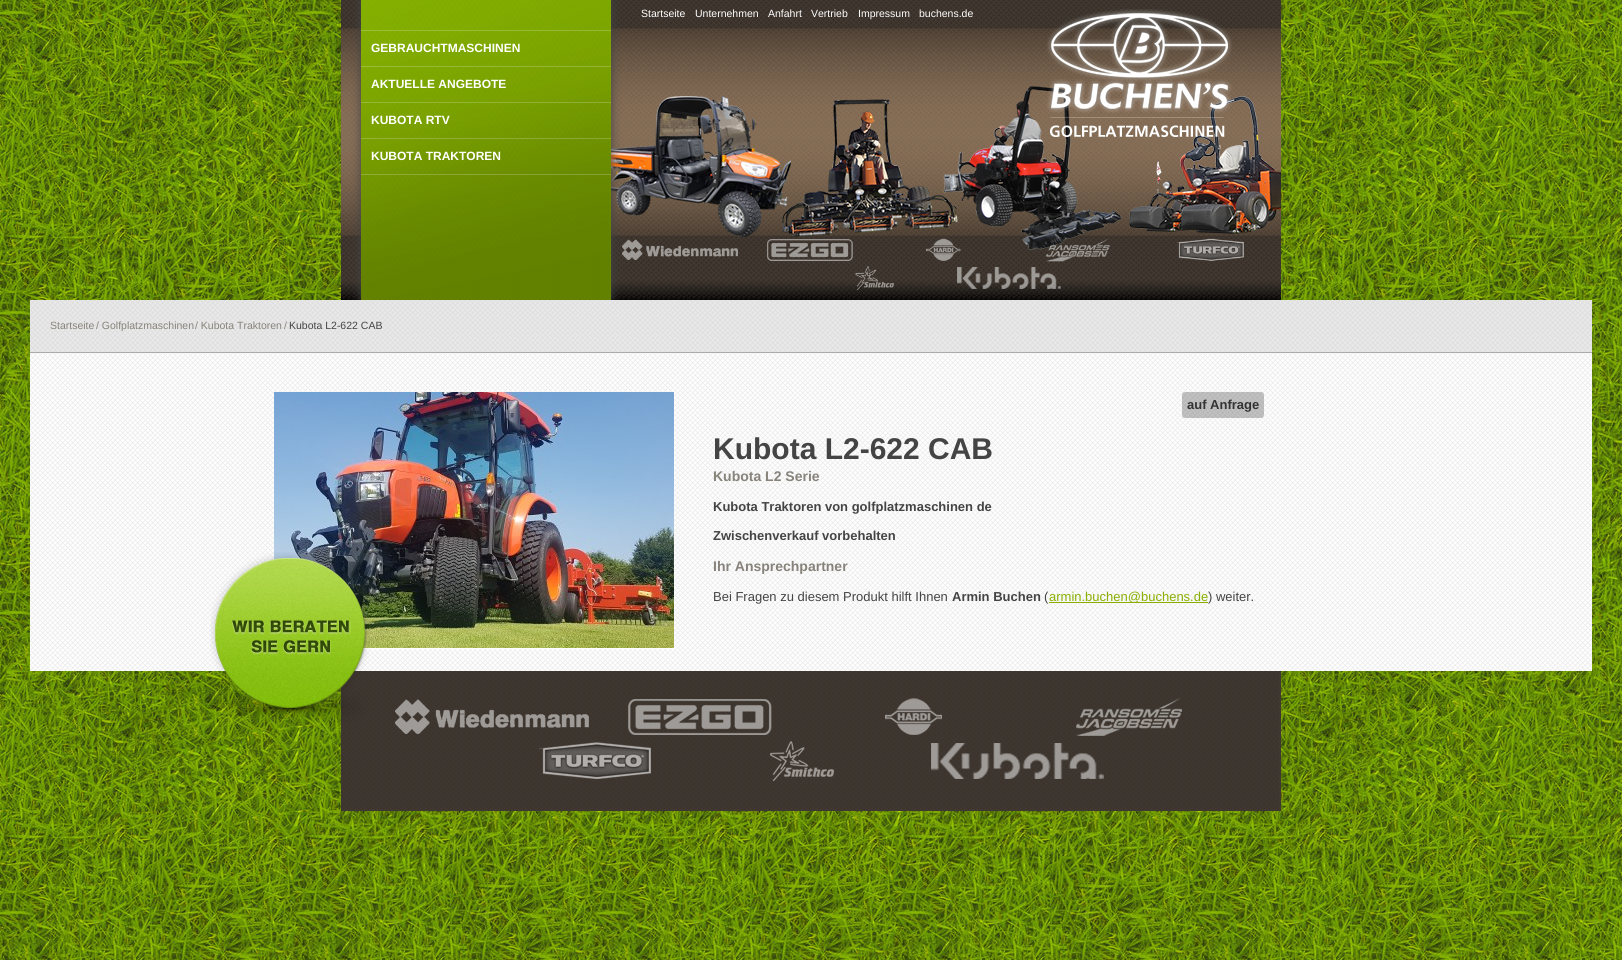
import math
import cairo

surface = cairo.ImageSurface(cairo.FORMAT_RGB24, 1622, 960)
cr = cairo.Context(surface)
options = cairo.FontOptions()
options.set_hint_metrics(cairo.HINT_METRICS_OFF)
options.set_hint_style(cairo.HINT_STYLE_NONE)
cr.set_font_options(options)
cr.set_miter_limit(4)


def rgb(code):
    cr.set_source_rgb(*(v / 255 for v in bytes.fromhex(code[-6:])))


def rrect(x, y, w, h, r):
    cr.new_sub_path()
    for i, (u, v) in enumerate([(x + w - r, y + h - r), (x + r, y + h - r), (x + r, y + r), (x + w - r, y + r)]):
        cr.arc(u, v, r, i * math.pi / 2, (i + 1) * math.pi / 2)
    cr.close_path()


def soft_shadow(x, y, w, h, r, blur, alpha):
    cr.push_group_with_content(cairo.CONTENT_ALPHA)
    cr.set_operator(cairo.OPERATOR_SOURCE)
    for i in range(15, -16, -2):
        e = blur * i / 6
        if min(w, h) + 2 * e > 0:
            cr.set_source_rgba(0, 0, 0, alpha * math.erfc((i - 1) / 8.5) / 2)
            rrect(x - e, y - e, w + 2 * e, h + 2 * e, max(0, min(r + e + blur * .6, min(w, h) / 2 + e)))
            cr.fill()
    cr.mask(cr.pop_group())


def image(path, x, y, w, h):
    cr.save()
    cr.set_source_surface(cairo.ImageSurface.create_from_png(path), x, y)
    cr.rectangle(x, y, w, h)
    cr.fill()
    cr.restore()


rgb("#ffffff")
cr.paint()
image("img/1.png", 0, 0, 1622, 960)
image("img/2.png", 341, 0, 940, 300)
image("img/3.png", 611, 9, 670, 241)
image("img/5.png", 622, 239, 116, 21)
rgb("#444444")
soft_shadow(361, 0, 250, 300, 0, 5, 1)
image("img/4.png", 361, 0, 250, 300)
cr.set_source_rgba(1, 1, 1, 0.2)
cr.rectangle(361, 30, 250, 1)
cr.fill()
cr.rectangle(361, 66, 250, 1)
cr.fill()
cr.rectangle(361, 102, 250, 1)
cr.fill()
cr.rectangle(361, 138, 250, 1)
cr.fill()
cr.rectangle(361, 174, 250, 1)
cr.fill()
image("img/6.png", 767, 239, 86, 22)
image("img/7.png", 926, 238, 35, 23)
image("img/8.png", 1046, 239, 64, 23)
image("img/9.png", 1176, 238, 68, 23)
image("img/10.png", 855, 266, 39, 24)
image("img/11.png", 957, 267, 104, 22)
rgb("#ffffff")
cr.rectangle(30, 300, 1562, 371)
cr.fill()
image("img/12.png", 30, 300, 1562, 371)
cr.set_source_rgba(0.784, 0.784, 0.784, 0.4)
cr.rectangle(30, 300, 1562, 52)
cr.fill()
rgb("#aaaaaa")
cr.rectangle(30, 352, 1562, 1)
cr.fill()
rgb("#ffffff")
soft_shadow(274, 393, 400, 256, 0, 0.5, 1)
image("img/13.png", 274, 392, 400, 256)
rgb("#3f3730")
cr.rectangle(341, 671, 940, 140)
cr.fill()
image("img/15.png", 341, 671, 938, 138)
image("img/14.png", 210, 552, 160, 171)
cr.set_source_rgba(0.392, 0.392, 0.392, 0.4)
rrect(1182, 392, 82, 26, 3)
cr.fill()
rgb("#89af00")
cr.rectangle(1049, 602, 159, 1)
cr.fill()
image("img/16.png", 395, 699, 194, 35)
image("img/17.png", 628, 699, 144, 36)
image("img/18.png", 885, 698, 57, 37)
image("img/19.png", 1076, 698, 106, 38)
image("img/20.png", 539, 742, 112, 37)
image("img/21.png", 770, 741, 64, 40)
image("img/22.png", 931, 743, 173, 36)
cr.select_font_face("Liberation Sans")
cr.set_font_size(10.5)
rgb("#ffffff")
for x, y, s in [
    (641, 17, "Startseite"),
    (695, 17, "Unternehmen"),
    (768, 17, "Anfahrt"),
    (811, 17, "Vertrieb"),
    (858, 17, "Impressum"),
    (919, 17, "buchens.de"),
]:
    cr.move_to(x, y)
    cr.show_text(s)
cr.select_font_face("Liberation Sans", cairo.FONT_SLANT_NORMAL, cairo.FONT_WEIGHT_BOLD)
cr.set_font_size(12)
for x, y, s in [
    (371, 52, "GEBRAUCHTMASCHINEN"),
    (371, 88, "AKTUELLE ANGEBOTE"),
    (371, 124, "KUBOTA RTV"),
    (371, 160, "KUBOTA TRAKTOREN"),
]:
    cr.move_to(x, y)
    cr.show_text(s)
cr.select_font_face("Liberation Sans")
cr.set_font_size(10.5)
rgb("#87837b")
for x, y, s in [
    (50, 329, "Startseite"),
    (96, 329, "/ Golfplatzmaschinen"),
    (195, 329, "/ Kubota Traktoren"),
    (284, 329, "/"),
]:
    cr.move_to(x, y)
    cr.show_text(s)
rgb("#444444")
cr.move_to(289, 329)
cr.show_text("Kubota L2-622 CAB")
cr.select_font_face("Liberation Sans", cairo.FONT_SLANT_NORMAL, cairo.FONT_WEIGHT_BOLD)
cr.set_font_size(13)
rgb("#333333")
cr.move_to(1187, 409)
cr.show_text("auf Anfrage")
cr.set_font_size(30)
rgb("#444444")
cr.move_to(713, 459)
cr.show_text("Kubota L2-622 CAB")
cr.set_font_size(14)
rgb("#87837b")
cr.move_to(713, 481)
cr.show_text("Kubota L2 Serie")
cr.set_font_size(13)
rgb("#444444")
cr.move_to(713, 511)
cr.show_text("Kubota Traktoren von golfplatzmaschinen de")
cr.move_to(713, 540)
cr.show_text("Zwischenverkauf vorbehalten")
cr.set_font_size(14)
rgb("#87837b")
cr.move_to(713, 571)
cr.show_text("Ihr Ansprechpartner")
cr.select_font_face("Liberation Sans")
cr.set_font_size(13)
rgb("#444444")
cr.move_to(713, 601)
cr.show_text("Bei Fragen zu diesem Produkt hilft Ihnen")
cr.select_font_face("Liberation Sans", cairo.FONT_SLANT_NORMAL, cairo.FONT_WEIGHT_BOLD)
cr.move_to(952, 601)
cr.show_text("Armin Buchen")
cr.select_font_face("Liberation Sans")
cr.move_to(1044, 601)
cr.show_text("(")
rgb("#89af00")
cr.move_to(1049, 601)
cr.show_text("armin.buchen@buchens.de")
rgb("#444444")
cr.move_to(1208, 601)
cr.show_text(") weiter.")
surface.write_to_png("page.png")
